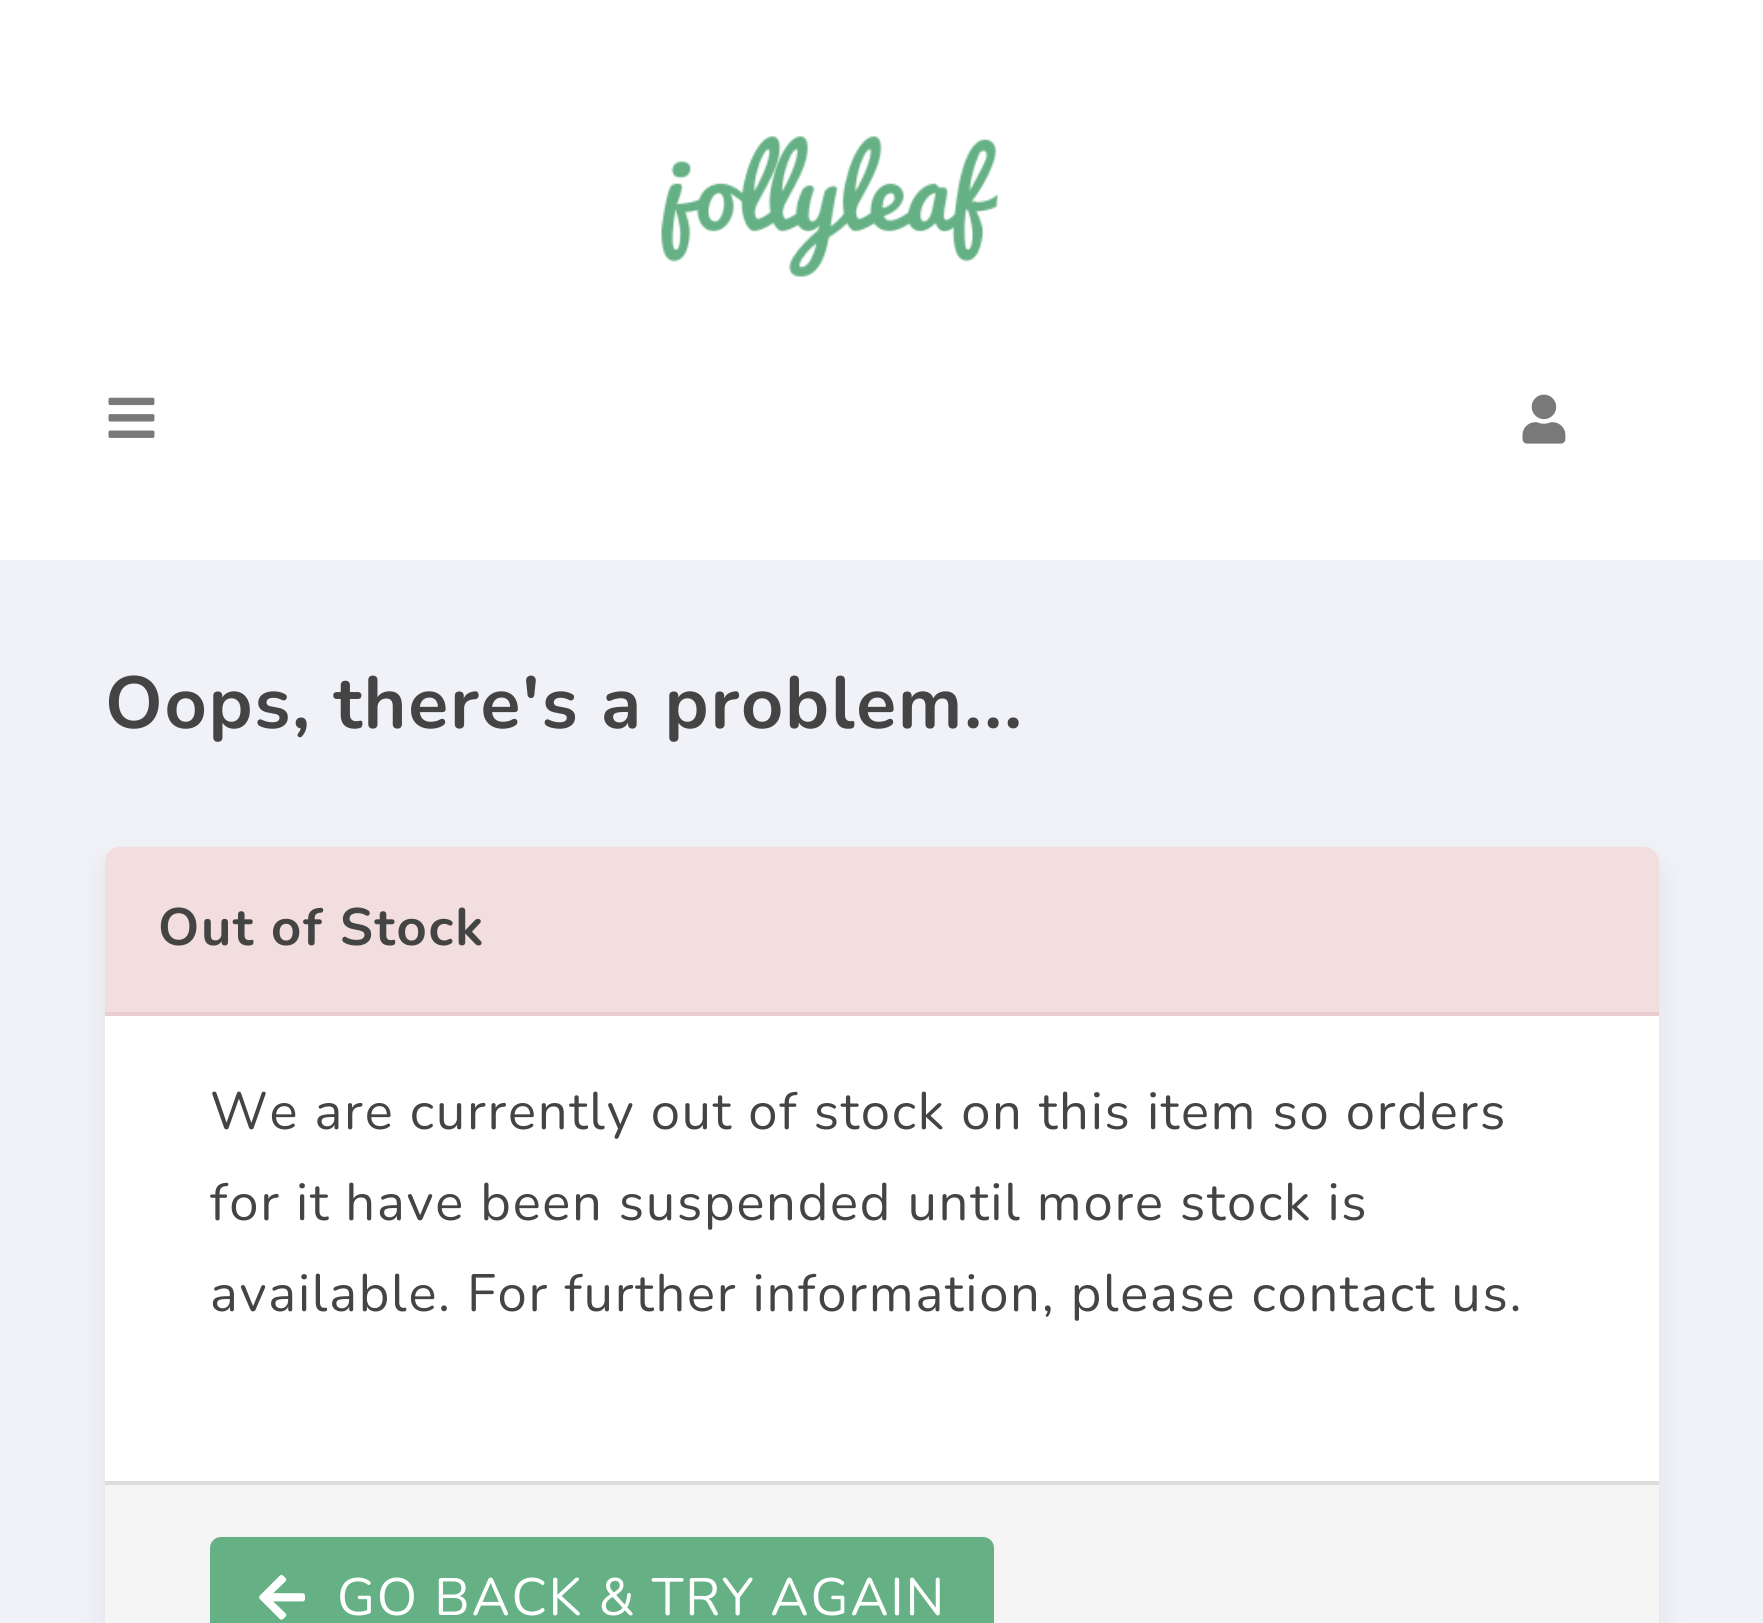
import math
import cairo

surface = cairo.ImageSurface(cairo.FORMAT_RGB24, 1763, 1623)
cr = cairo.Context(surface)
options = cairo.FontOptions()
options.set_hint_metrics(cairo.HINT_METRICS_OFF)
options.set_hint_style(cairo.HINT_STYLE_NONE)
cr.set_font_options(options)
cr.set_miter_limit(4)


def rgb(code):
    cr.set_source_rgb(*(v / 255 for v in bytes.fromhex(code[-6:])))


def tracked(x, y, s, letter, word):
    cr.move_to(x, y)
    for ch in s:
        cr.show_text(ch)
        cr.rel_move_to(letter + word * (ch == ' '), 0)


def rrect(x, y, w, h, r):
    cr.new_sub_path()
    for i, (u, v) in enumerate([(x + w - r, y + h - r), (x + r, y + h - r), (x + r, y + r), (x + w - r, y + r)]):
        cr.arc(u, v, r, i * math.pi / 2, (i + 1) * math.pi / 2)
    cr.close_path()


def soft_shadow(x, y, w, h, r, blur, alpha):
    cr.push_group_with_content(cairo.CONTENT_ALPHA)
    cr.set_operator(cairo.OPERATOR_SOURCE)
    for i in range(15, -16, -2):
        e = blur * i / 6
        if min(w, h) + 2 * e > 0:
            cr.set_source_rgba(0, 0, 0, alpha * math.erfc((i - 1) / 8.5) / 2)
            rrect(x - e, y - e, w + 2 * e, h + 2 * e, max(0, min(r + e + blur * .6, min(w, h) / 2 + e)))
            cr.fill()
    cr.mask(cr.pop_group())


def image(path, x, y, w, h):
    cr.save()
    cr.set_source_surface(cairo.ImageSurface.create_from_png(path), x, y)
    cr.rectangle(x, y, w, h)
    cr.fill()
    cr.restore()


rgb("#ffffff")
cr.paint()
image("img/1.png", 661, 136, 337, 141)
image("img/2.png", 108, 397, 47, 41)
image("img/3.png", 1522, 394, 44, 50)
rgb("#f1f2f7")
cr.rectangle(0, 560, 1763, 1063)
cr.fill()
rgb("#484654")
soft_shadow(105, 861, 1554, 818, 14, 14, 0.1)
rgb("#ffffff")
rrect(105, 847, 1554, 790, 14)
cr.fill()
rgb("#f2dede")
cr.new_path()
cr.move_to(119, 847)
cr.line_to(1645, 847)
cr.curve_to(1652.5, 847, 1659, 853.5, 1659, 861)
cr.line_to(1659, 1015)
cr.line_to(105, 1015)
cr.line_to(105, 861)
cr.curve_to(105, 853.5, 111.5, 847, 119, 847)
cr.close_path()
cr.fill()
for x, y, w, h, color in [
    (105, 1012, 1554, 4, "#ebccd1"),
    (105, 1485, 1554, 138, "#f5f5f5"),
    (105, 1481, 1554, 4, "#dddddd"),
]:
    rgb(color)
    cr.rectangle(x, y, w, h)
    cr.fill()
rgb("#65b185")
rrect(210, 1537, 784, 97, 11)
cr.fill()
image("img/4.png", 259, 1575, 47, 45)
cr.select_font_face("Nunito", cairo.FONT_SLANT_NORMAL, cairo.FONT_WEIGHT_BOLD)
cr.set_font_size(73.5)
rgb("#444444")
tracked(105, 728, "Oops, there's a problem...", 1.75, 0)
cr.set_font_size(52.5)
tracked(158, 945, "Out of Stock", 1.75, 0)
cr.select_font_face("Nunito")
for x, y, s in [
    (210, 1129, "We are currently out of stock on this item so orders"),
    (210, 1220, "for it have been suspended until more stock is"),
    (210, 1311, "available. For further information, please contact us."),
]:
    tracked(x, y, s, 1.75, 0)
rgb("#ffffff")
tracked(337, 1615, "GO BACK & TRY AGAIN", 1.75, 0)
surface.write_to_png("page.png")
